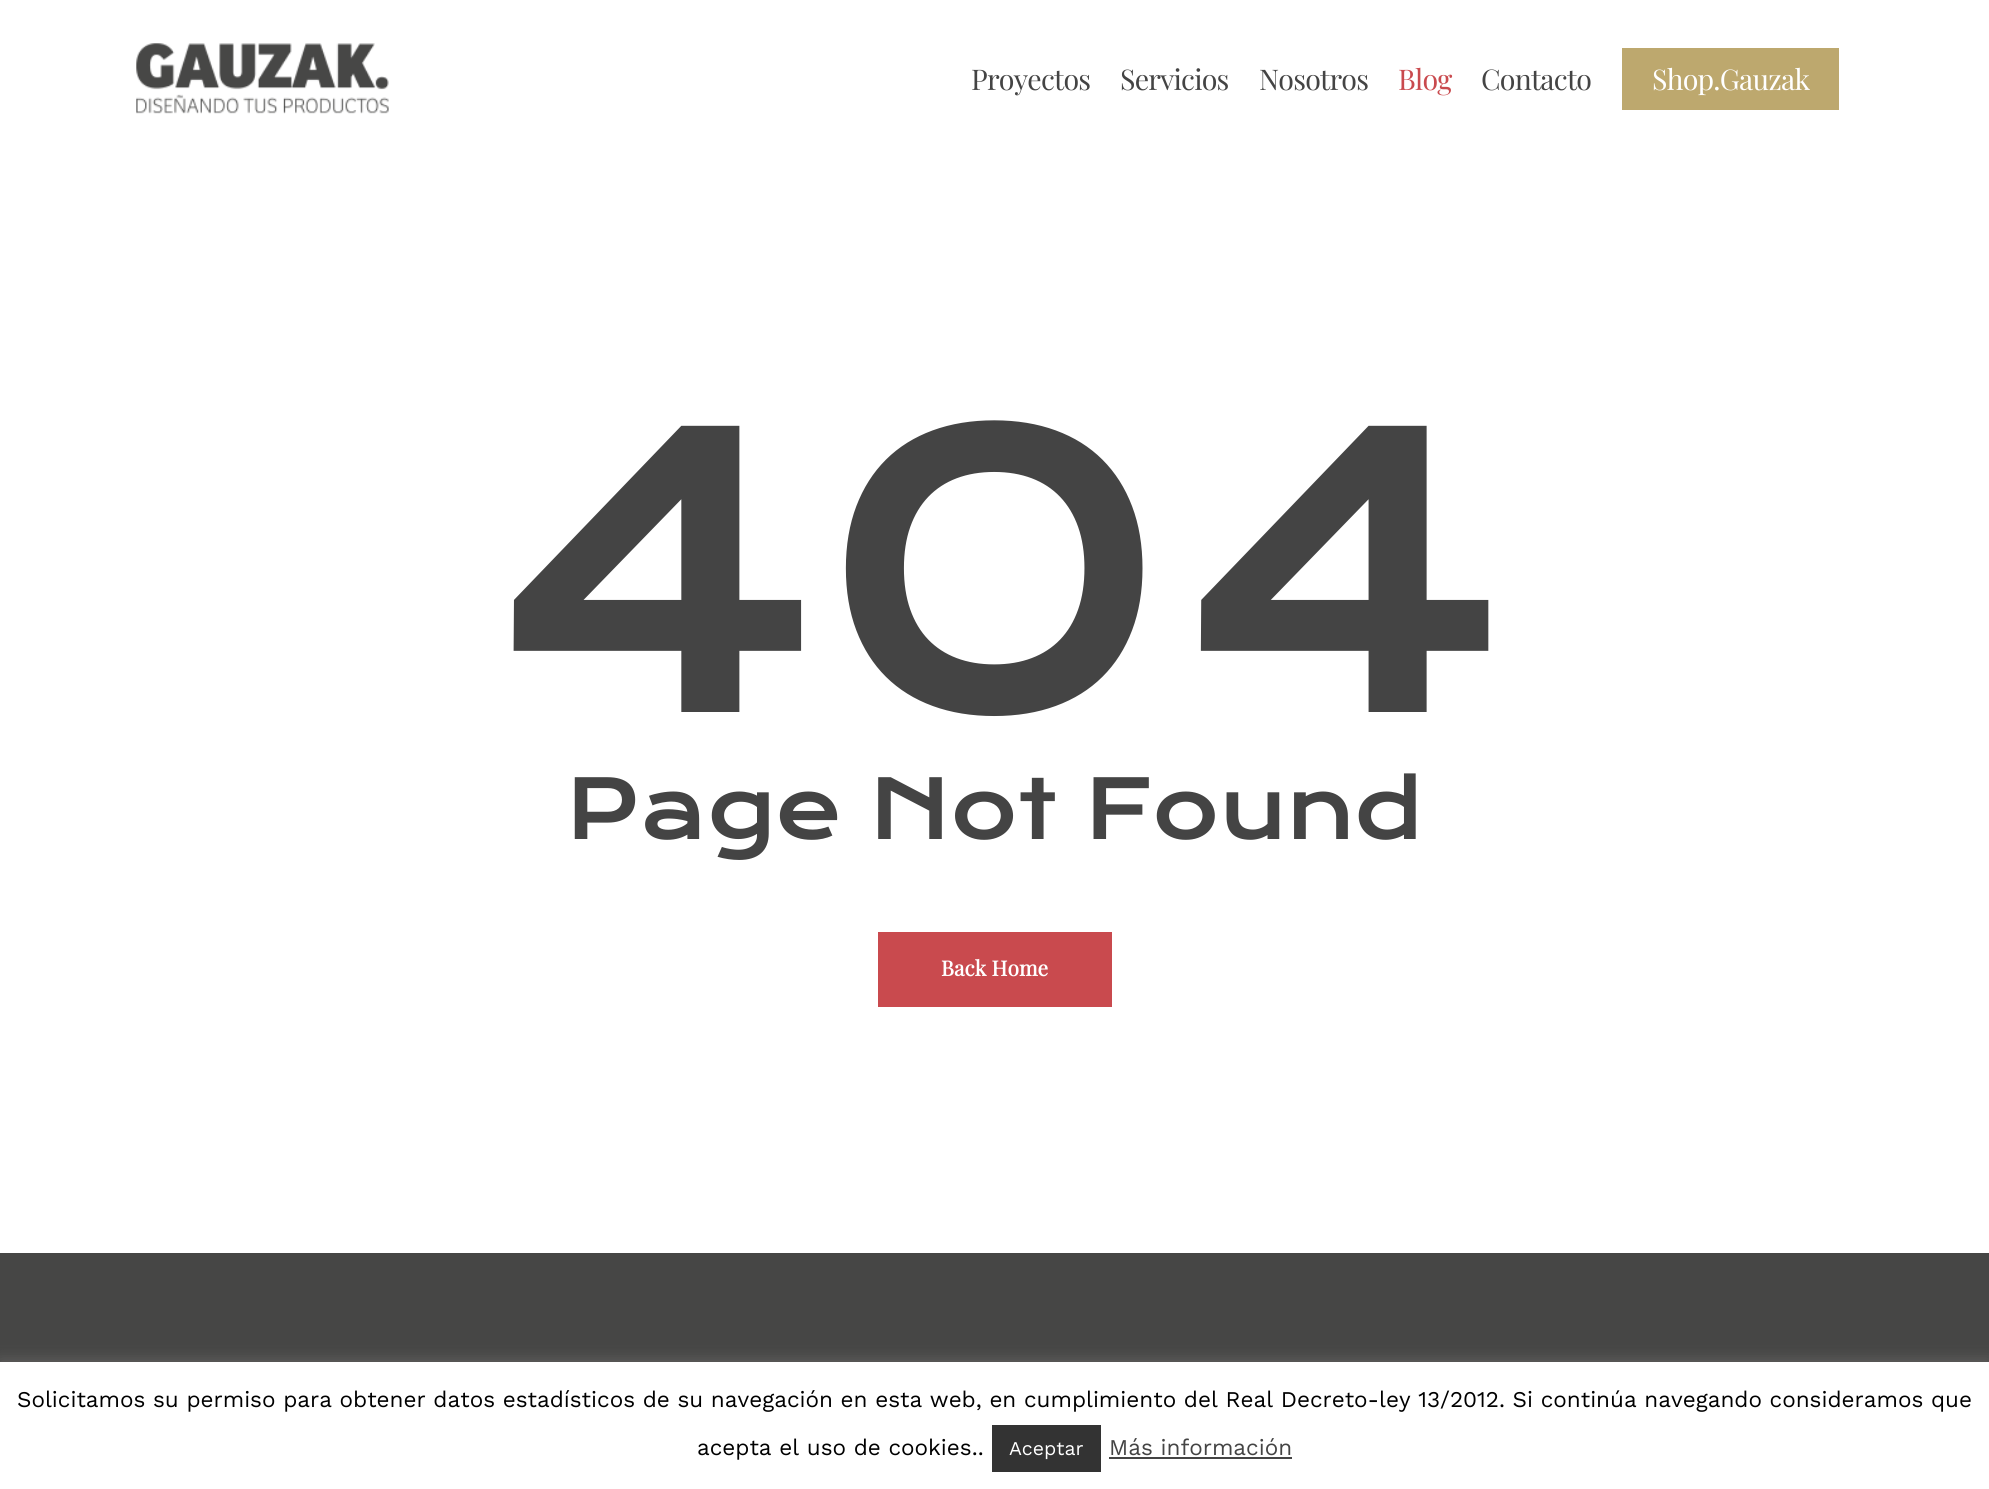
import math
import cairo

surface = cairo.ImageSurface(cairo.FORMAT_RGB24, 1989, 1489)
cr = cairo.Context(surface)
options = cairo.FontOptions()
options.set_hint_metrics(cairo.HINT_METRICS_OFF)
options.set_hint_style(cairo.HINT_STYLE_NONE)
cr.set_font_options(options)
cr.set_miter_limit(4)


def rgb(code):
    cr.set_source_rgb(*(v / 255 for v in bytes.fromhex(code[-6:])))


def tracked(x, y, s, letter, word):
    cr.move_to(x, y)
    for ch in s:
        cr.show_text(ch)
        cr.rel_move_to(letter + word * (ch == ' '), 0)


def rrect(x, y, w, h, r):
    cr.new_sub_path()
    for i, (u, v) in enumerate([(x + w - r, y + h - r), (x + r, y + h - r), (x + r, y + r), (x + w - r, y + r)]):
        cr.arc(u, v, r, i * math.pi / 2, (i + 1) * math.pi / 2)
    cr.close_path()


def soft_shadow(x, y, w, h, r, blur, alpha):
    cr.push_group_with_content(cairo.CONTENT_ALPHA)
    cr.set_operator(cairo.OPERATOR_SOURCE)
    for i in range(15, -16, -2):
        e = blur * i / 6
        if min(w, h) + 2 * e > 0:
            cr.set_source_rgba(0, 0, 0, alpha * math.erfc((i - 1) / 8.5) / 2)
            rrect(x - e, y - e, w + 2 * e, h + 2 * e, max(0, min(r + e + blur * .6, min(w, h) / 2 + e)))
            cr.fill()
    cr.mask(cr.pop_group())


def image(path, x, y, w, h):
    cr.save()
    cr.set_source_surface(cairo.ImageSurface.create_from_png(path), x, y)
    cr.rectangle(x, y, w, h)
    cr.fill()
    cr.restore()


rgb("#ffffff")
cr.paint()
image("img/1.png", 136, 43, 253, 71)
for x, y, w, h, color in [
    (1622, 48, 217, 62, "#bda86e"),
    (878, 932, 234, 75, "#c94a4e"),
    (0, 1253, 1989, 109, "#464645"),
]:
    rgb(color)
    cr.rectangle(x, y, w, h)
    cr.fill()
rgb("#acabab")
soft_shadow(0, 1361, 1989, 127, 0, 7.5, 0.3)
for x, y, w, h, color in [
    (0, 1362, 1989, 127, "#ffffff"),
    (992, 1425, 109, 47, "#333333"),
    (1109, 1457, 183, 2, "#444444"),
]:
    rgb(color)
    cr.rectangle(x, y, w, h)
    cr.fill()
cr.select_font_face("Playfair Display")
cr.set_font_size(28.5)
for x, y, s in [
    (971, 90, "Proyectos"),
    (1120, 90, "Servicios"),
    (1259, 90, "Nosotros"),
]:
    tracked(x, y, s, -0.75, 0)
rgb("#c94a4e")
tracked(1398, 90, "Blog", -0.75, 0)
rgb("#444444")
tracked(1481, 90, "Contacto", -0.75, 0)
rgb("#ffffff")
tracked(1652, 90, "Shop.Gauzak", -0.75, 0)
cr.select_font_face("Krona One")
cr.set_font_size(375)
rgb("#444444")
cr.move_to(479, 712)
cr.show_text("404")
cr.set_font_size(81)
cr.move_to(566, 839)
cr.show_text("Page Not Found")
cr.select_font_face("Playfair Display", cairo.FONT_SLANT_NORMAL, cairo.FONT_WEIGHT_BOLD)
cr.set_font_size(21)
rgb("#ffffff")
cr.move_to(941, 976)
cr.show_text("Back Home")
cr.select_font_face("Work Sans")
cr.set_font_size(22.5)
rgb("#000000")
cr.move_to(17, 1407)
cr.show_text("Solicitamos su permiso para obtener datos estadísticos de su navegación en esta web, en cumplimiento del Real Decreto-ley 13/2012. Si continúa navegando consideramos que")
cr.move_to(697, 1455)
cr.show_text("acepta el uso de cookies..")
cr.set_font_size(19.5)
rgb("#ffffff")
cr.move_to(1009, 1455)
cr.show_text("Aceptar")
cr.set_font_size(22.5)
rgb("#444444")
cr.move_to(1109, 1455)
cr.show_text("Más información")
surface.write_to_png("page.png")
